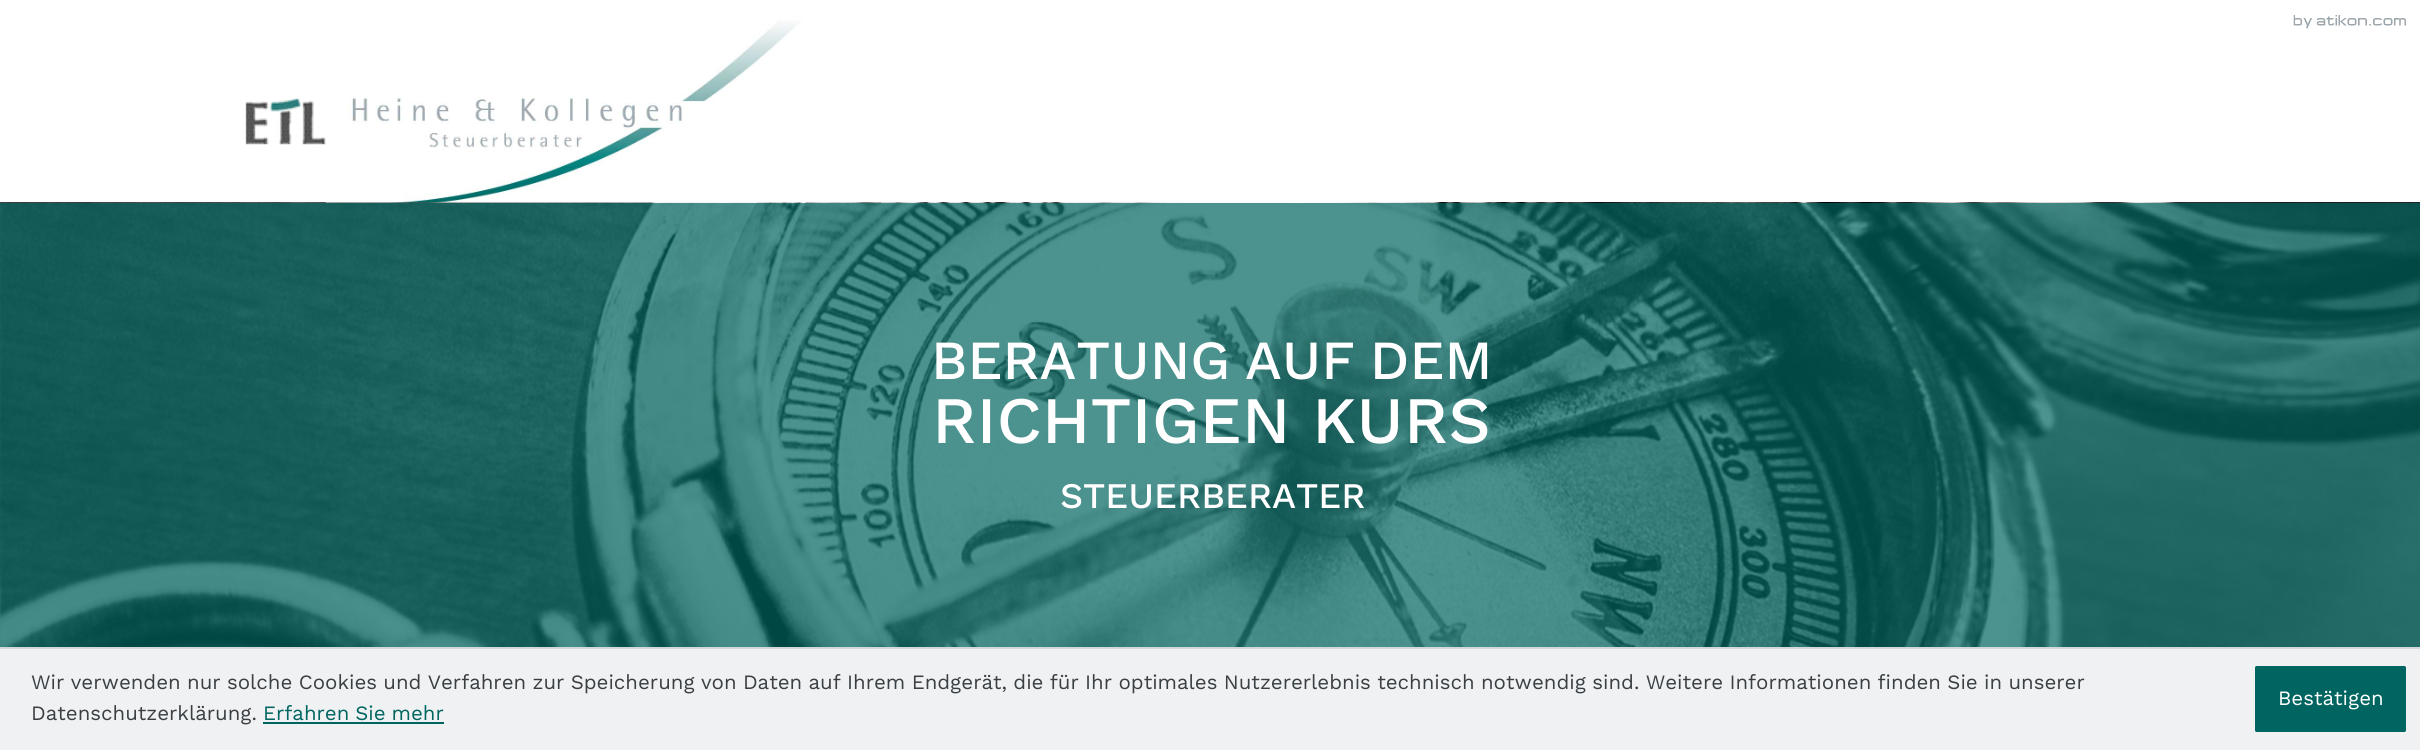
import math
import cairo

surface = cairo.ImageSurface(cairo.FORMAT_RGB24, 2420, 750)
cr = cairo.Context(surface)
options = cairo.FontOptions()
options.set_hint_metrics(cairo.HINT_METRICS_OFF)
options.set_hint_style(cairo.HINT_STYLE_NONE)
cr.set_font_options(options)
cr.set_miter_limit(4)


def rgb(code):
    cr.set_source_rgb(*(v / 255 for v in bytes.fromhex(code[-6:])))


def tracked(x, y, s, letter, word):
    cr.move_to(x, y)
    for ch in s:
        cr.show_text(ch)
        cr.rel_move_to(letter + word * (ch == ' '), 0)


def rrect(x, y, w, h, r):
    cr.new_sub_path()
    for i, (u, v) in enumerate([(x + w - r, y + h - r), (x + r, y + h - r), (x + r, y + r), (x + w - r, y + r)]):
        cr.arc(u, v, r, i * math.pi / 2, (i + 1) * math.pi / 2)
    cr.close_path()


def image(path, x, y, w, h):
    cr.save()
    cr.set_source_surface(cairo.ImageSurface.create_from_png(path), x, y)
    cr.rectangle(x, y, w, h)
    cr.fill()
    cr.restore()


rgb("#ffffff")
cr.paint()
image("img/1.png", 245, 98, 81, 47)
image("img/4.png", 0, 202, 2420, 445)
image("img/2.png", 325, 20, 481, 183)
image("img/3.png", 2293, 15, 113, 14)
for x, y, w, h, color in [
    (0, 649, 2420, 101, "#eff1f2"),
    (0, 647, 2420, 2, "#d3d8db"),
    (263, 722, 181, 2, "#006560"),
]:
    rgb(color)
    cr.rectangle(x, y, w, h)
    cr.fill()
rrect(2256, 667, 149, 64, 0.5)
cr.fill_preserve()
cr.stroke()
cr.select_font_face("Work Sans Medium")
cr.set_font_size(55.1)
rgb("#ffffff")
tracked(931, 379, "BERATUNG AUF DEM", 0, -3)
cr.set_font_size(66.25)
cr.move_to(932, 443)
cr.show_text("RICHTIGEN KURS")
cr.set_font_size(36)
cr.move_to(1060, 508)
cr.show_text("STEUERBERATER")
cr.select_font_face("Work Sans")
cr.set_font_size(20.4)
rgb("#393f43")
tracked(31, 689, "Wir verwenden nur solche Cookies und Verfahren zur Speicherung von Daten auf Ihrem Endgerät, die für Ihr optimales Nutzererlebnis technisch notwendig sind. Weitere Informationen finden Sie in unserer", 0, -0.6)
cr.move_to(31, 720)
cr.show_text("Datenschutzerklärung.")
rgb("#006560")
tracked(263, 720, "Erfahren Sie mehr", 0, -1)
rgb("#ffffff")
cr.move_to(2278, 705)
cr.show_text("Bestätigen")
surface.write_to_png("page.png")
